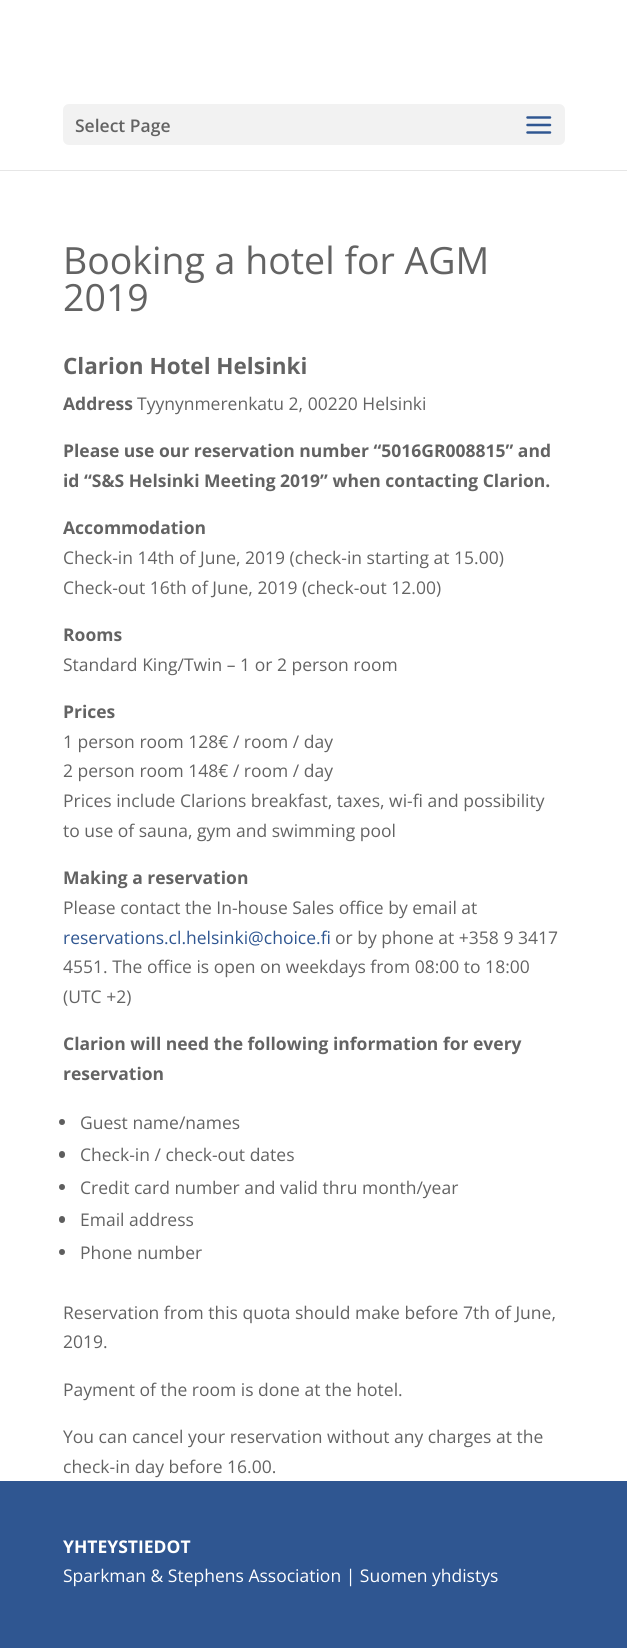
import math
import cairo

surface = cairo.ImageSurface(cairo.FORMAT_RGB24, 627, 1648)
cr = cairo.Context(surface)
options = cairo.FontOptions()
options.set_hint_metrics(cairo.HINT_METRICS_OFF)
options.set_hint_style(cairo.HINT_STYLE_NONE)
cr.set_font_options(options)
cr.set_miter_limit(4)


def rgb(code):
    cr.set_source_rgb(*(v / 255 for v in bytes.fromhex(code[-6:])))


def rrect(x, y, w, h, r):
    cr.new_sub_path()
    for i, (u, v) in enumerate([(x + w - r, y + h - r), (x + r, y + h - r), (x + r, y + r), (x + w - r, y + r)]):
        cr.arc(u, v, r, i * math.pi / 2, (i + 1) * math.pi / 2)
    cr.close_path()


def image(path, x, y, w, h):
    cr.save()
    cr.set_source_surface(cairo.ImageSurface.create_from_png(path), x, y)
    cr.rectangle(x, y, w, h)
    cr.fill()
    cr.restore()


rgb("#ffffff")
cr.paint()
rgb("#e6e6e6")
cr.new_path()
cr.move_to(0, 170)
cr.line_to(0, 171)
cr.line_to(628, 171)
cr.line_to(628, 1)
cr.line_to(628, 170)
cr.close_path()
cr.fill()
rgb("#f2f2f2")
rrect(63, 104, 502, 41, 6)
cr.fill()
image("img/1.png", 526, 116, 26, 18)
rgb("#5e5e5e")
cr.arc(62, 1122, 3, 0, 2 * math.pi)
cr.fill()
rrect(59, 1151, 6, 7, 3)
cr.fill()
cr.arc(62, 1187, 3, 0, 2 * math.pi)
cr.fill()
rrect(59, 1216, 6, 7, 3)
cr.fill()
cr.arc(62, 1252, 3, 0, 2 * math.pi)
cr.fill()
rgb("#2f5691")
cr.rectangle(0, 1481, 627, 167)
cr.fill()
cr.select_font_face("Open Sans SemiBold")
cr.set_font_size(17.5)
rgb("#636363")
cr.move_to(75, 132)
cr.show_text("Select Page")
cr.select_font_face("Open Sans")
cr.set_font_size(37.5)
cr.move_to(63, 274)
cr.show_text("Booking a hotel for AGM")
cr.move_to(63, 311)
cr.show_text("2019")
cr.select_font_face("Open Sans", cairo.FONT_SLANT_NORMAL, cairo.FONT_WEIGHT_BOLD)
cr.set_font_size(22.5)
cr.move_to(63, 374)
cr.show_text("Clarion Hotel Helsinki")
cr.set_font_size(17.5)
cr.move_to(63, 410)
cr.show_text("Address")
cr.select_font_face("Open Sans")
cr.move_to(137, 410)
cr.show_text("Tyynynmerenkatu 2, 00220 Helsinki")
cr.select_font_face("Open Sans", cairo.FONT_SLANT_NORMAL, cairo.FONT_WEIGHT_BOLD)
for x, y, s in [
    (63, 457, "Please use our reservation number “5016GR008815” and"),
    (63, 487, "id “S&S Helsinki Meeting 2019” when contacting Clarion."),
    (63, 534, "Accommodation"),
]:
    cr.move_to(x, y)
    cr.show_text(s)
cr.select_font_face("Open Sans")
cr.move_to(63, 564)
cr.show_text("Check-in 14th of June, 2019 (check-in starting at 15.00)")
cr.move_to(63, 594)
cr.show_text("Check-out 16th of June, 2019 (check-out 12.00)")
cr.select_font_face("Open Sans", cairo.FONT_SLANT_NORMAL, cairo.FONT_WEIGHT_BOLD)
cr.move_to(63, 641)
cr.show_text("Rooms")
cr.select_font_face("Open Sans")
cr.move_to(63, 671)
cr.show_text("Standard King/Twin – 1 or 2 person room")
cr.select_font_face("Open Sans", cairo.FONT_SLANT_NORMAL, cairo.FONT_WEIGHT_BOLD)
cr.move_to(63, 718)
cr.show_text("Prices")
cr.select_font_face("Open Sans")
for x, y, s in [
    (63, 748, "1 person room 128€ / room / day"),
    (63, 777, "2 person room 148€ / room / day"),
    (63, 807, "Prices include Clarions breakfast, taxes, wi-fi and possibility"),
    (63, 837, "to use of sauna, gym and swimming pool"),
]:
    cr.move_to(x, y)
    cr.show_text(s)
cr.select_font_face("Open Sans", cairo.FONT_SLANT_NORMAL, cairo.FONT_WEIGHT_BOLD)
cr.move_to(63, 884)
cr.show_text("Making a reservation")
cr.select_font_face("Open Sans")
cr.move_to(63, 914)
cr.show_text("Please contact the In-house Sales office by email at")
rgb("#2f5691")
cr.move_to(63, 944)
cr.show_text("reservations.cl.helsinki@choice.fi")
rgb("#636363")
for x, y, s in [
    (335, 944, "or by phone at +358 9 3417"),
    (63, 973, "4551. The office is open on weekdays from 08:00 to 18:00"),
    (63, 1003, "(UTC +2)"),
]:
    cr.move_to(x, y)
    cr.show_text(s)
cr.select_font_face("Open Sans", cairo.FONT_SLANT_NORMAL, cairo.FONT_WEIGHT_BOLD)
cr.move_to(63, 1050)
cr.show_text("Clarion will need the following information for every")
cr.move_to(63, 1080)
cr.show_text("reservation")
cr.select_font_face("Open Sans")
for x, y, s in [
    (80, 1129, "Guest name/names"),
    (80, 1161, "Check-in / check-out dates"),
    (80, 1194, "Credit card number and valid thru month/year"),
    (80, 1226, "Email address"),
    (80, 1259, "Phone number"),
    (63, 1319, "Reservation from this quota should make before 7th of June,"),
    (63, 1348, "2019."),
    (63, 1396, "Payment of the room is done at the hotel."),
    (63, 1443, "You can cancel your reservation without any charges at the"),
    (63, 1473, "check-in day before 16.00."),
]:
    cr.move_to(x, y)
    cr.show_text(s)
cr.select_font_face("Open Sans", cairo.FONT_SLANT_NORMAL, cairo.FONT_WEIGHT_BOLD)
rgb("#ffffff")
cr.move_to(63, 1553)
cr.show_text("YHTEYSTIEDOT")
cr.select_font_face("Open Sans")
cr.move_to(63, 1582)
cr.show_text("Sparkman & Stephens Association | Suomen yhdistys")
surface.write_to_png("page.png")
